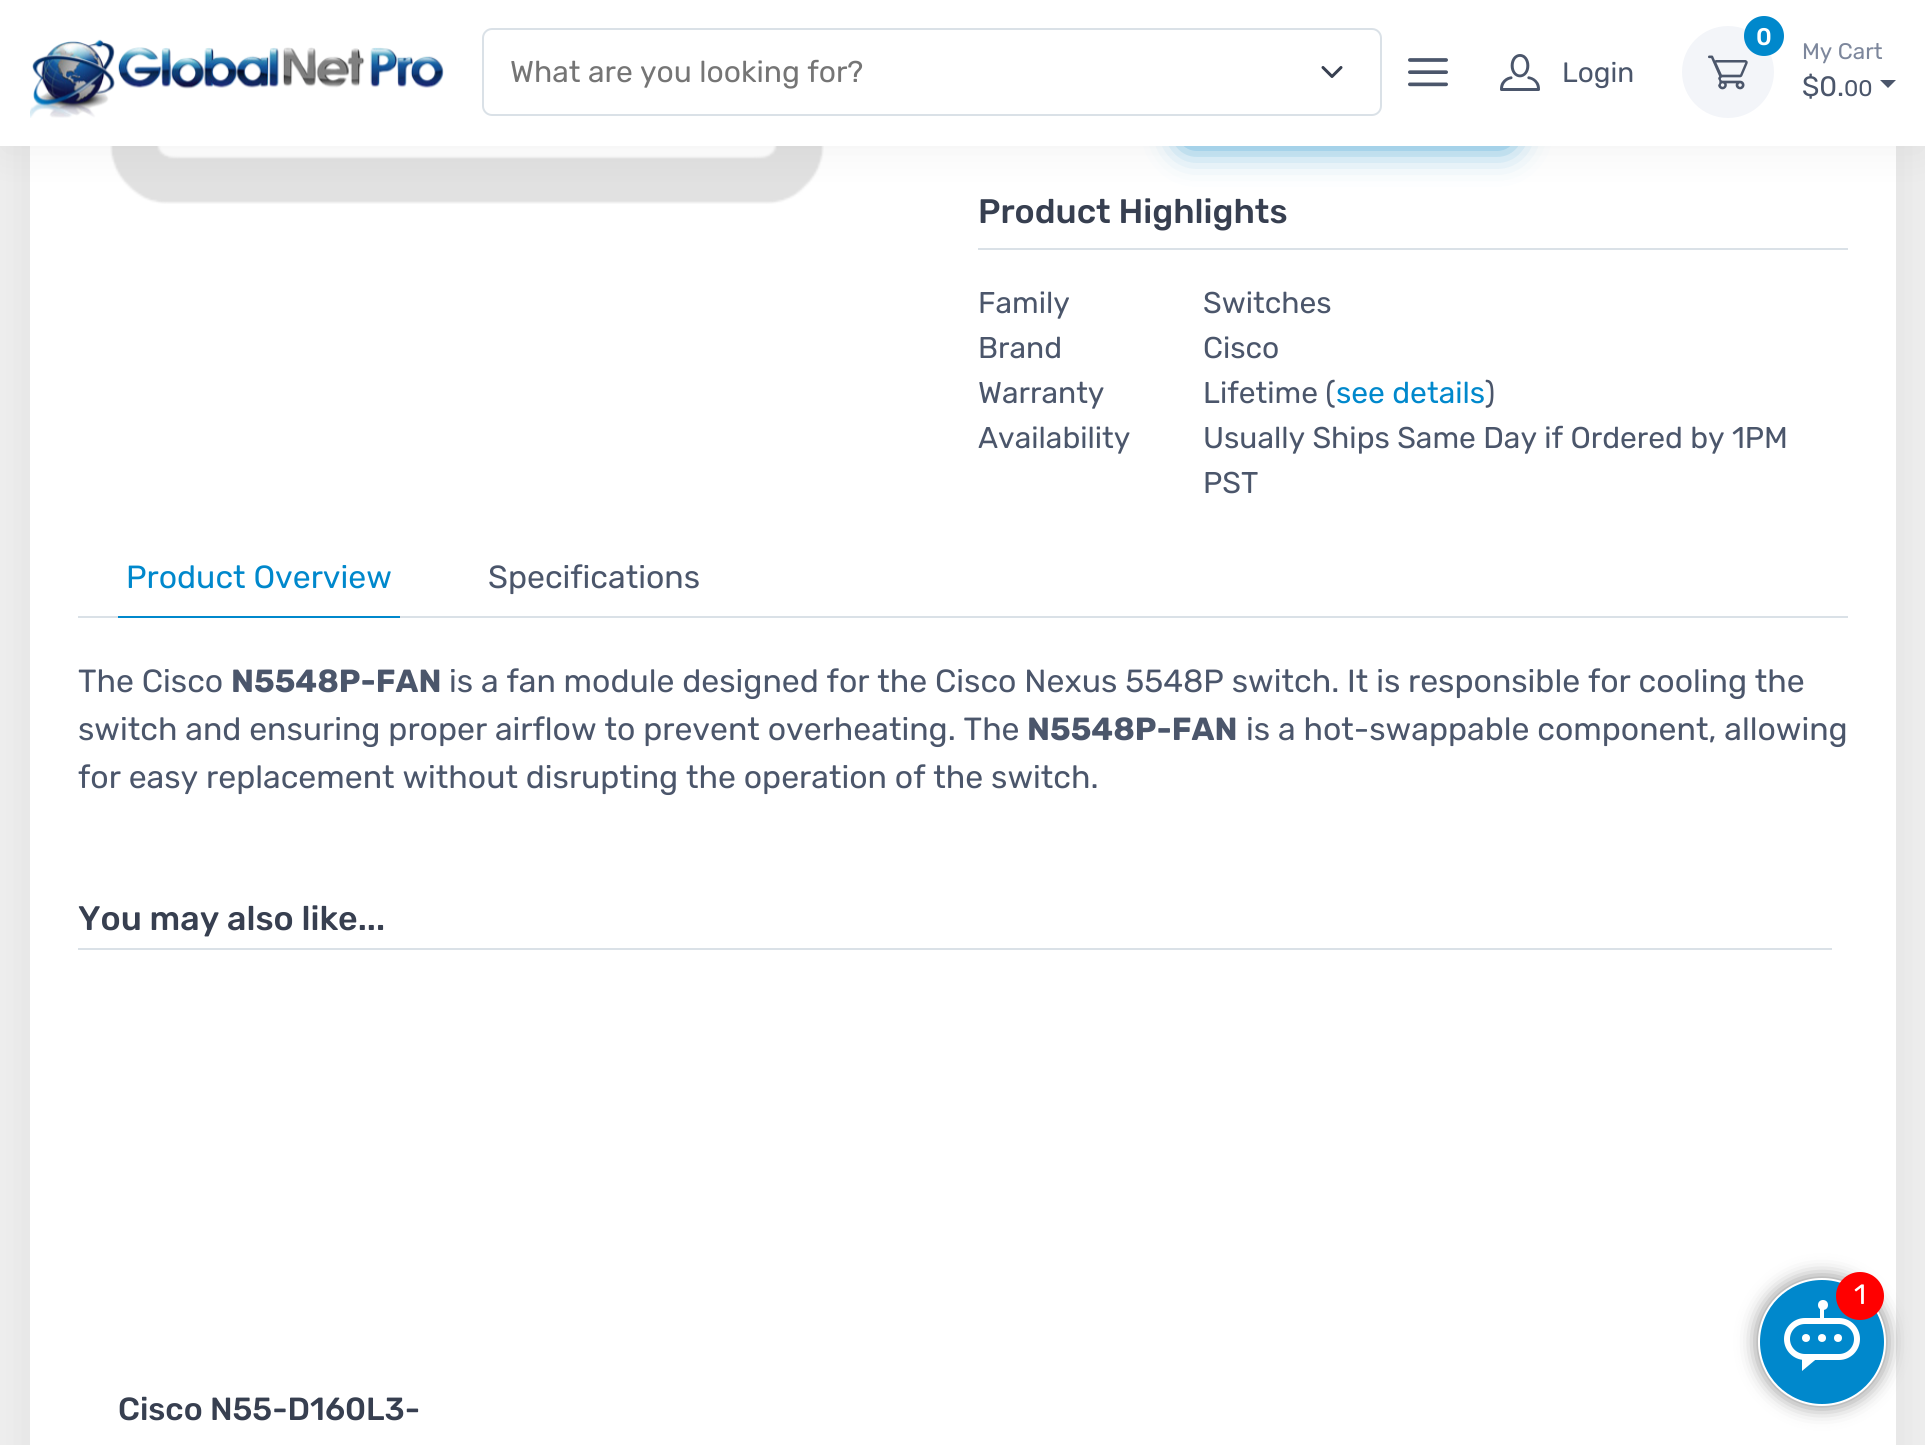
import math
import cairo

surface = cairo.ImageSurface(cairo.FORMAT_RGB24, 1925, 1445)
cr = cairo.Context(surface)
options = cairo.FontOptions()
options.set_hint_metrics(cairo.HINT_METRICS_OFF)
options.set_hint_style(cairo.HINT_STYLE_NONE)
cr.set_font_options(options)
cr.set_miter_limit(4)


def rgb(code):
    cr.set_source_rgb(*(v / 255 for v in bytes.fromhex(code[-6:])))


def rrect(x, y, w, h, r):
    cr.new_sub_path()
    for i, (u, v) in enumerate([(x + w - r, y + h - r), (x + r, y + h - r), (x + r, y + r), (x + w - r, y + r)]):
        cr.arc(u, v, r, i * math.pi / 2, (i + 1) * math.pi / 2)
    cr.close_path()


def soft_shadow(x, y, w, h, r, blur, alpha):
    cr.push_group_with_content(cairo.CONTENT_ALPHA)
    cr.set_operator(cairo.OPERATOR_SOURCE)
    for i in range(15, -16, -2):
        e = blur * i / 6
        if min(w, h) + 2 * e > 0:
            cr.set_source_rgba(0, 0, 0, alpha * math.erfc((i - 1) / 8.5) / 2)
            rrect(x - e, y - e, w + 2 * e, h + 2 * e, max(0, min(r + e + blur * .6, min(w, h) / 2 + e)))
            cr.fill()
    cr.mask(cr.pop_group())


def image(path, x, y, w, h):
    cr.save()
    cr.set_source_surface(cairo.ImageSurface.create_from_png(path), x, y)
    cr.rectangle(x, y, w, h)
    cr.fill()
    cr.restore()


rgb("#eeeeee")
cr.paint()
rgb("#000000")
soft_shadow(42, -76, 1842, 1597, 2, 24.5, 0.1)
rgb("#ffffff")
cr.rectangle(30, 146, 1866, 1299)
cr.fill()
image("img/5.png", 110, 146, 714, 58)
rgb("#000000")
soft_shadow(2, 10, 1922, 142, 0, 20, 0.05)
rgb("#0088cc")
soft_shadow(1186, 86, 322, 56, 0, 18, 0.9)
rgb("#ffffff")
cr.rectangle(0, 0, 1925, 146)
cr.fill()
image("img/1.png", 30, 39, 414, 79)
cr.new_path()
cr.move_to(1323, 67.5)
cr.line_to(1332, 76.5)
cr.line_to(1341, 67.5)
rgb("#373f50")
cr.set_line_width(3)
cr.set_line_cap(cairo.LINE_CAP_ROUND)
cr.set_line_join(cairo.LINE_JOIN_ROUND)
cr.stroke()
rrect(483, 29, 898, 86, 9)
rgb("#dae1e7")
cr.set_line_width(2)
cr.set_line_cap(cairo.LINE_CAP_BUTT)
cr.set_line_join(cairo.LINE_JOIN_MITER)
cr.stroke()
image("img/2.png", 1408, 58, 40, 29)
image("img/3.png", 1500, 54, 40, 37)
rgb("#f3f5f9")
cr.arc(1728, 72, 46, 0, 2 * math.pi)
cr.fill()
image("img/4.png", 1708, 55, 40, 35)
rgb("#0088cc")
cr.arc(1764, 36, 20, 0, 2 * math.pi)
cr.fill()
rgb("#4b566b")
cr.new_path()
cr.move_to(1880, 80)
cr.line_to(1896, 80)
cr.line_to(1888, 88)
cr.close_path()
cr.fill()
for x, y, w, h, color in [
    (978, 248, 870, 2, "#dae1e7"),
    (78, 616, 1770, 2, "#dae1e7"),
    (118, 616, 282, 2, "#0088cc"),
    (78, 948, 1754, 2, "#dae1e7"),
]:
    rgb(color)
    cr.rectangle(x, y, w, h)
    cr.fill()
rgb("#000000")
soft_shadow(1758, 1278, 128, 128, 64, 10, 0.5)
rgb("#0088cc")
cr.arc(1822, 1342, 63, 0, 2 * math.pi)
cr.fill_preserve()
rgb("#ffffff")
cr.stroke()
rrect(1787, 1321, 70, 36, 18)
cr.set_line_width(6)
cr.stroke()
rgb("#ff0000")
cr.arc(1860, 1296, 24, 0, 2 * math.pi)
cr.fill()
rgb("#ffffff")
cr.rectangle(1820, 1306, 4, 12)
cr.fill()
cr.arc(1823, 1305, 5, 0, 2 * math.pi)
cr.fill()
cr.arc(1806, 1338, 4, 0, 2 * math.pi)
cr.fill()
cr.arc(1822, 1338, 4, 0, 2 * math.pi)
cr.fill()
cr.arc(1838, 1338, 4, 0, 2 * math.pi)
cr.fill()
cr.new_path()
cr.move_to(1817.5, 1358)
cr.line_to(1802, 1371)
cr.line_to(1802, 1355.5)
cr.close_path()
cr.fill()
cr.select_font_face("Rubik")
cr.set_font_size(30)
rgb("#757575")
cr.move_to(510, 82)
cr.show_text("What are you looking for?")
cr.set_font_size(28)
rgb("#4b566b")
cr.move_to(1562, 82)
cr.show_text("Login")
cr.select_font_face("Rubik Medium")
cr.set_font_size(24)
rgb("#ffffff")
cr.move_to(1756, 45)
cr.show_text("0")
cr.select_font_face("Rubik")
cr.set_font_size(22.5)
rgb("#7d879c")
cr.move_to(1802, 59)
cr.show_text("My Cart")
cr.set_font_size(28)
rgb("#4b566b")
cr.move_to(1802, 96)
cr.show_text("$0.")
cr.set_font_size(22.5)
cr.move_to(1844, 96)
cr.show_text("00")
cr.select_font_face("Rubik Medium")
cr.set_font_size(34)
rgb("#373f50")
cr.move_to(978, 223)
cr.show_text("Product Highlights")
cr.select_font_face("Rubik")
cr.set_font_size(30)
rgb("#4b566b")
for x, y, s in [
    (978, 313, "Family"),
    (1203, 313, "Switches"),
    (978, 358, "Brand"),
    (1203, 358, "Cisco"),
    (978, 403, "Warranty"),
    (1203, 403, "Lifetime ("),
]:
    cr.move_to(x, y)
    cr.show_text(s)
rgb("#0088cc")
cr.move_to(1336, 403)
cr.show_text("see details")
rgb("#4b566b")
for x, y, s in [
    (1485, 403, ")"),
    (978, 448, "Availability"),
    (1203, 448, "Usually Ships Same Day if Ordered by 1PM"),
    (1203, 493, "PST"),
]:
    cr.move_to(x, y)
    cr.show_text(s)
cr.set_font_size(32)
rgb("#0088cc")
cr.move_to(126, 588)
cr.show_text("Product Overview")
rgb("#4b566b")
cr.move_to(488, 588)
cr.show_text("Specifications")
cr.move_to(78, 692)
cr.show_text("The Cisco")
cr.select_font_face("Rubik", cairo.FONT_SLANT_NORMAL, cairo.FONT_WEIGHT_BOLD)
cr.move_to(231, 692)
cr.show_text("N5548P-FAN")
cr.select_font_face("Rubik")
cr.move_to(449, 692)
cr.show_text("is a fan module designed for the Cisco Nexus 5548P switch. It is responsible for cooling the")
cr.move_to(78, 740)
cr.show_text("switch and ensuring proper airflow to prevent overheating. The")
cr.select_font_face("Rubik", cairo.FONT_SLANT_NORMAL, cairo.FONT_WEIGHT_BOLD)
cr.move_to(1027, 740)
cr.show_text("N5548P-FAN")
cr.select_font_face("Rubik")
cr.move_to(1246, 740)
cr.show_text("is a hot-swappable component, allowing")
cr.move_to(78, 788)
cr.show_text("for easy replacement without disrupting the operation of the switch.")
cr.select_font_face("Rubik Medium")
cr.set_font_size(34)
rgb("#373f50")
cr.move_to(78, 930)
cr.show_text("You may also like...")
cr.set_font_size(32)
cr.move_to(118, 1420)
cr.show_text("Cisco N55-D160L3-")
cr.select_font_face("Rubik")
cr.set_font_size(28)
rgb("#ffffff")
cr.move_to(1854, 1304)
cr.show_text("1")
surface.write_to_png("page.png")
